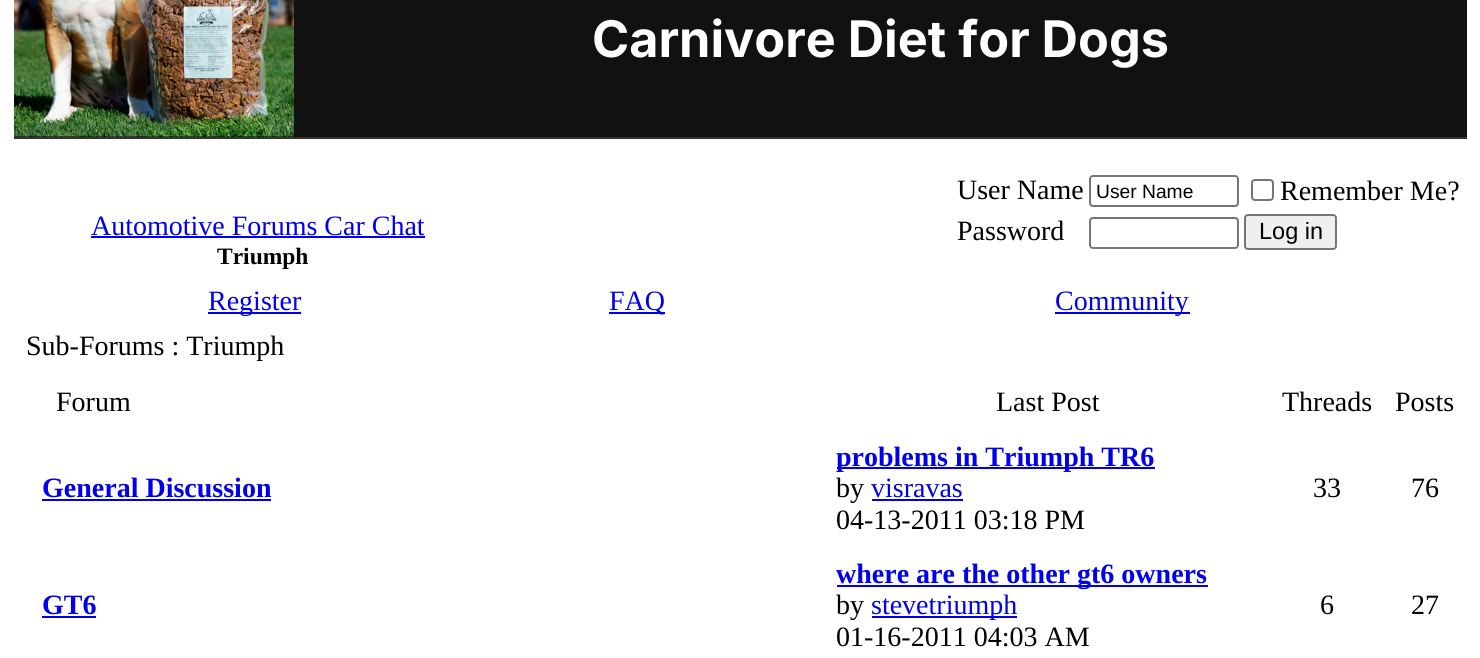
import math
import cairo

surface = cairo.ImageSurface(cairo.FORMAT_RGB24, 1480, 658)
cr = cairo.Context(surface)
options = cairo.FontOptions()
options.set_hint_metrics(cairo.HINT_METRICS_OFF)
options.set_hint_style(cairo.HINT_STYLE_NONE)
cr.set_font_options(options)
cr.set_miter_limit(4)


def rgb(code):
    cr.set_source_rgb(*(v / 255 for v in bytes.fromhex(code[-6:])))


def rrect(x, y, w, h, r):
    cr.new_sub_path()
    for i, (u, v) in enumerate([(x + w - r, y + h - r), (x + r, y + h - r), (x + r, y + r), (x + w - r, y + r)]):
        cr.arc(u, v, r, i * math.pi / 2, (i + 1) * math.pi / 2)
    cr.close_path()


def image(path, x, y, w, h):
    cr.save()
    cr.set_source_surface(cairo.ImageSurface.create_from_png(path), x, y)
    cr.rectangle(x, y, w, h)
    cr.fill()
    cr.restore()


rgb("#ffffff")
cr.paint()
for x, y, w, h, color in [
    (14, 137, 1453, 2, "#333333"),
    (294, 0, 1173, 137, "#111111"),
    (14, 136, 280, 1, "#000000"),
]:
    rgb(color)
    cr.rectangle(x, y, w, h)
    cr.fill()
image("img/1.png", 14, 0, 280, 137)
rgb("#0000ee")
cr.rectangle(91, 236, 334, 2)
cr.fill()
rrect(1090, 176, 148, 30, 3)
rgb("#767676")
cr.stroke()
rrect(1252, 180, 21, 20, 3)
cr.stroke()
rrect(1090, 218, 148, 30, 3)
cr.stroke()
rgb("#efefef")
rrect(1245, 215, 91, 34, 3)
cr.fill_preserve()
rgb("#767676")
cr.stroke()
for x, y, w, h, color in [
    (208, 312, 93, 2, "#0000ee"),
    (609, 312, 56, 2, "#0000ee"),
    (1055, 312, 135, 2, "#0000ee"),
    (42, 499, 229, 2, "#0000ee"),
    (837, 467, 318, 2, "#0000ee"),
    (872, 499, 91, 2, "#0000ee"),
    (42, 616, 54, 2, "#0000ee"),
    (837, 585, 371, 2, "#0000ee"),
    (872, 616, 145, 2, "#0000ee"),
]:
    rgb(color)
    cr.rectangle(x, y, w, h)
    cr.fill()
cr.select_font_face("Inter", cairo.FONT_SLANT_NORMAL, cairo.FONT_WEIGHT_BOLD)
cr.set_font_size(50.4)
rgb("#ffffff")
cr.move_to(592, 57)
cr.show_text("Carnivore Diet for Dogs")
cr.select_font_face("Liberation Serif")
cr.set_font_size(28)
rgb("#0000ee")
cr.move_to(91, 235)
cr.show_text("Automotive Forums Car Chat")
cr.select_font_face("Liberation Serif", cairo.FONT_SLANT_NORMAL, cairo.FONT_WEIGHT_BOLD)
cr.set_font_size(23.5)
rgb("#000000")
cr.move_to(217, 264)
cr.show_text("Triumph")
cr.select_font_face("Liberation Serif")
cr.set_font_size(28)
cr.move_to(957, 199)
cr.show_text("User Name")
cr.select_font_face("Liberation Sans")
cr.set_font_size(19.25)
cr.move_to(1096, 198)
cr.show_text("User Name")
cr.select_font_face("Liberation Serif")
cr.set_font_size(28)
cr.move_to(1280, 200)
cr.show_text("Remember Me?")
cr.move_to(957, 240)
cr.show_text("Password")
cr.select_font_face("Liberation Sans")
cr.set_font_size(23.5)
cr.move_to(1259, 239)
cr.show_text("Log in")
cr.select_font_face("Liberation Serif")
cr.set_font_size(28)
rgb("#0000ee")
for x, y, s in [
    (208, 310, "Register"),
    (609, 310, "FAQ"),
    (1055, 310, "Community"),
]:
    cr.move_to(x, y)
    cr.show_text(s)
rgb("#000000")
for x, y, s in [
    (26, 355, "Sub-Forums : Triumph"),
    (56, 411, "Forum"),
    (996, 411, "Last Post"),
    (1282, 411, "Threads"),
    (1395, 411, "Posts"),
]:
    cr.move_to(x, y)
    cr.show_text(s)
cr.select_font_face("Liberation Serif", cairo.FONT_SLANT_NORMAL, cairo.FONT_WEIGHT_BOLD)
rgb("#0000ee")
cr.move_to(42, 497)
cr.show_text("General Discussion")
cr.move_to(836, 466)
cr.show_text("problems in Triumph TR6")
cr.select_font_face("Liberation Serif")
rgb("#000000")
cr.move_to(836, 497)
cr.show_text("by")
rgb("#0000ee")
cr.move_to(871, 497)
cr.show_text("visravas")
rgb("#000000")
for x, y, s in [
    (836, 529, "04-13-2011 03:18 PM"),
    (1313, 497, "33"),
    (1411, 497, "76"),
]:
    cr.move_to(x, y)
    cr.show_text(s)
cr.select_font_face("Liberation Serif", cairo.FONT_SLANT_NORMAL, cairo.FONT_WEIGHT_BOLD)
rgb("#0000ee")
cr.move_to(42, 614)
cr.show_text("GT6")
cr.move_to(836, 583)
cr.show_text("where are the other gt6 owners")
cr.select_font_face("Liberation Serif")
rgb("#000000")
cr.move_to(836, 614)
cr.show_text("by")
rgb("#0000ee")
cr.move_to(871, 614)
cr.show_text("stevetriumph")
rgb("#000000")
for x, y, s in [
    (836, 646, "01-16-2011 04:03 AM"),
    (1320, 614, "6"),
    (1411, 614, "27"),
]:
    cr.move_to(x, y)
    cr.show_text(s)
surface.write_to_png("page.png")
